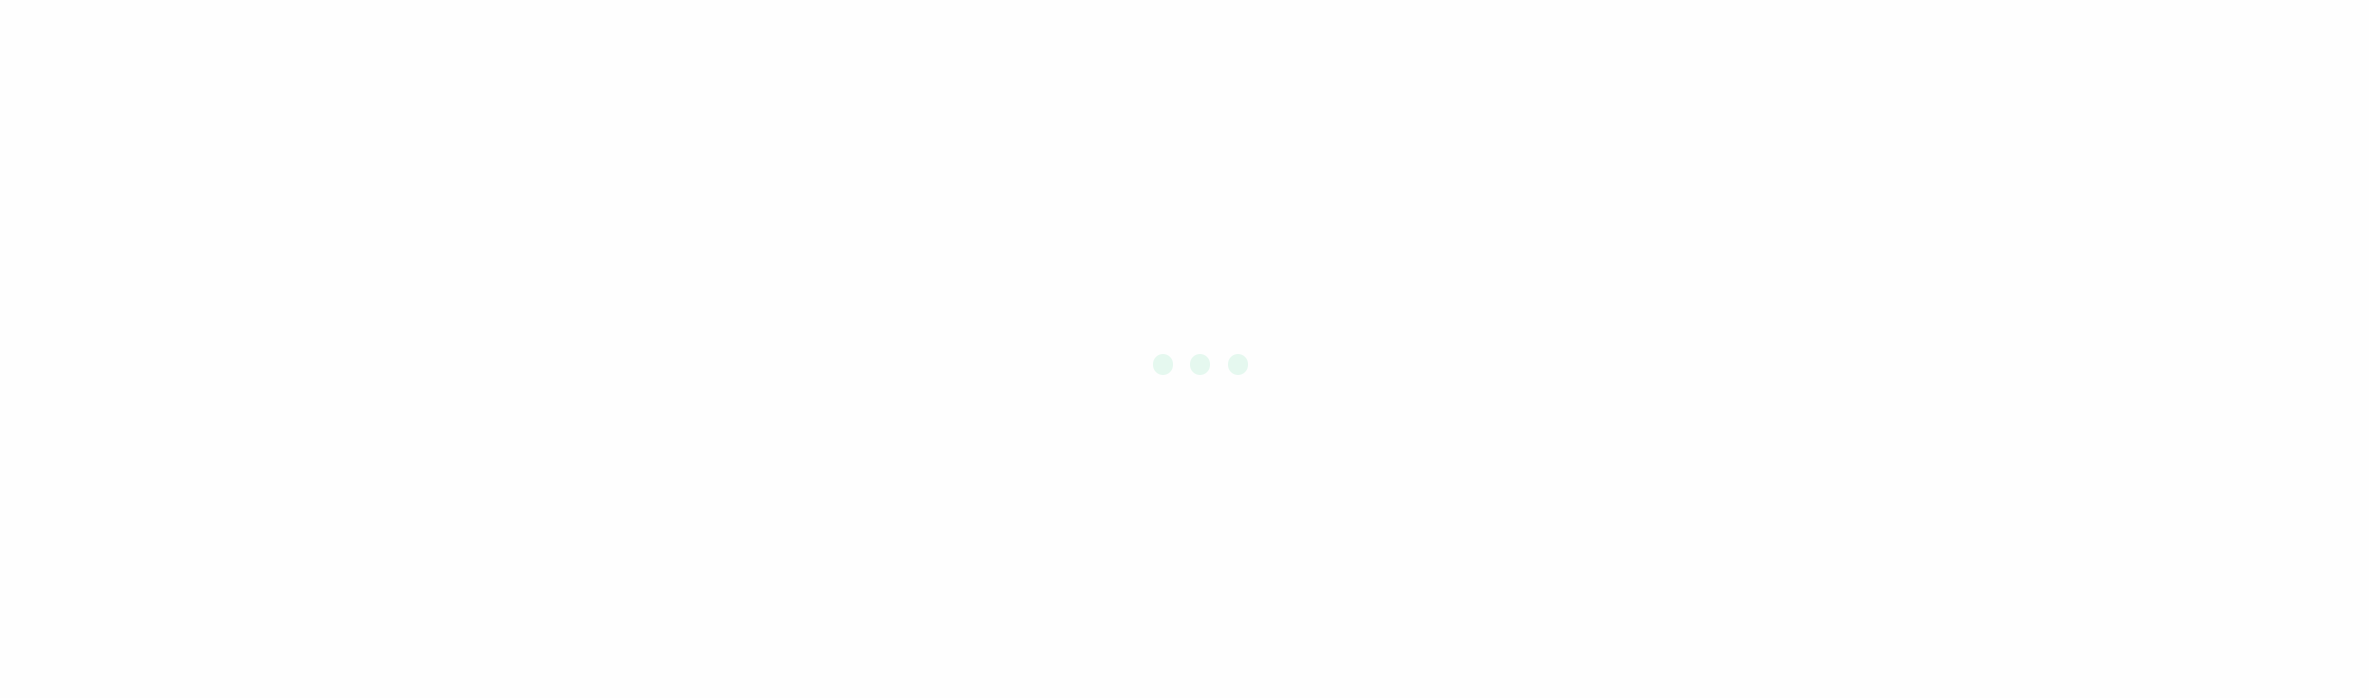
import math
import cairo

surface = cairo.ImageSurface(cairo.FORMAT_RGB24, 2369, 698)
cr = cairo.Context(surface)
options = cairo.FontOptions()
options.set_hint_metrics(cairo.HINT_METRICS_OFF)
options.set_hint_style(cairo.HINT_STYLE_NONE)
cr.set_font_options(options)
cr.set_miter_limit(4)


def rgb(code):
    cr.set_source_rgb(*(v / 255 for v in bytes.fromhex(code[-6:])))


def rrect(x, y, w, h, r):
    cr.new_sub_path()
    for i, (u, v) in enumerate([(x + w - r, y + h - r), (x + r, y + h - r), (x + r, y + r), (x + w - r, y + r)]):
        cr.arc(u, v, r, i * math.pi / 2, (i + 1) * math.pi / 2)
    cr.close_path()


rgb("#fefefe")
cr.paint()
rgb("#e5f8ef")
rrect(1153, 354, 20, 21, 10)
cr.fill()
rrect(1190, 354, 20, 21, 10)
cr.fill()
rrect(1228, 354, 20, 21, 10)
cr.fill()
surface.write_to_png("page.png")
